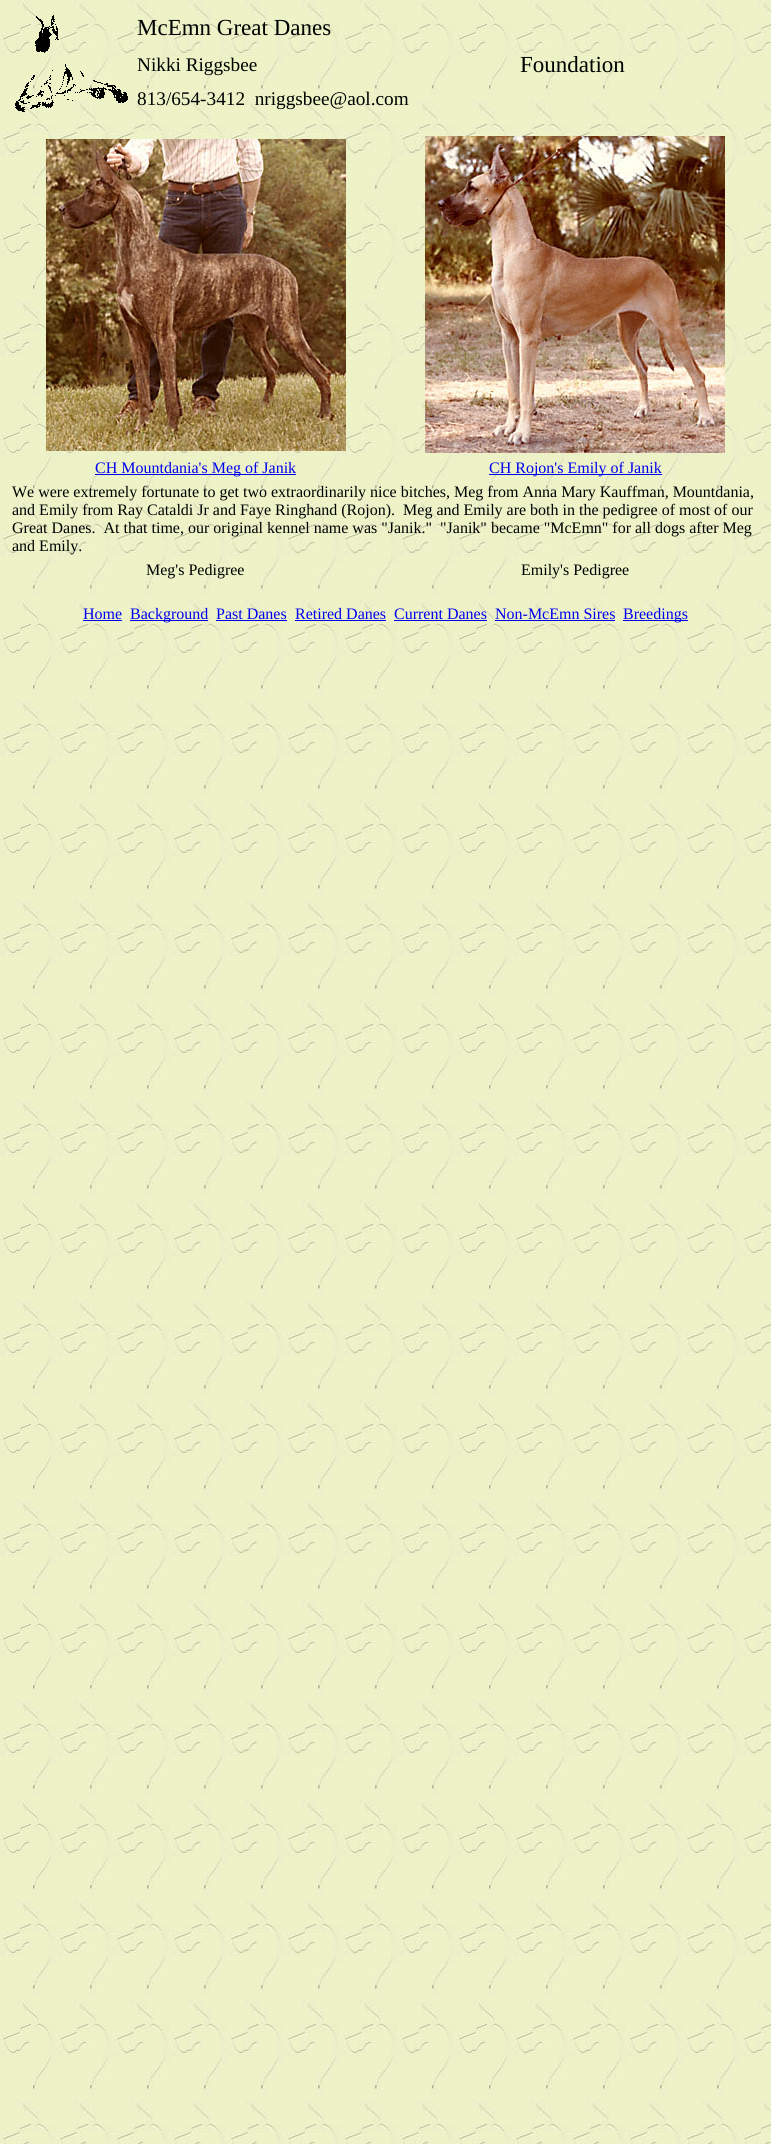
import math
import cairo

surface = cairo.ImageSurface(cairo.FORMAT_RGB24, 771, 2144)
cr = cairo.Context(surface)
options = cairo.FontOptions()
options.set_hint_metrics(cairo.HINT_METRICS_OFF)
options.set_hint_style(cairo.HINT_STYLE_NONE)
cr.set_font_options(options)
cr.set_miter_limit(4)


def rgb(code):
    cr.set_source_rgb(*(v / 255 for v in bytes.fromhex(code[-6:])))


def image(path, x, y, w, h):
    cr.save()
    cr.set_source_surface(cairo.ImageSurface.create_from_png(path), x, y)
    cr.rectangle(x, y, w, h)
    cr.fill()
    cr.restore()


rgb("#ffffff")
cr.paint()
image("img/1.png", 0, 0, 771, 2144)
image("img/2.png", 15, 15, 113, 97)
image("img/3.png", 46, 139, 300, 312)
image("img/4.png", 425, 136, 300, 317)
for x, y, w, h, color in [
    (95, 474, 201, 1, "#0000ee"),
    (489, 474, 173, 1, "#0000ee"),
    (83, 620, 39, 1, "#0000ee"),
    (130, 620, 78, 1, "#0000ee"),
    (216, 620, 71, 1, "#0000ee"),
    (295, 620, 91, 1, "#0000ee"),
    (394, 620, 93, 1, "#0000ee"),
    (495, 620, 120, 1, "#0000ee"),
    (623, 620, 65, 1, "#0000ee"),
]:
    rgb(color)
    cr.rectangle(x, y, w, h)
    cr.fill()
cr.select_font_face("Liberation Serif")
cr.set_font_size(23)
rgb("#000000")
cr.move_to(137, 35)
cr.show_text("McEmn Great Danes")
cr.set_font_size(19.25)
cr.move_to(137, 71)
cr.show_text("Nikki Riggsbee")
cr.set_font_size(23)
cr.move_to(520, 72)
cr.show_text("Foundation")
cr.set_font_size(19.25)
cr.move_to(137, 105)
cr.show_text("813/654-3412  nriggsbee@aol.com")
cr.set_font_size(16)
rgb("#0000ee")
cr.move_to(95, 473)
cr.show_text("CH Mountdania's Meg of Janik")
cr.move_to(489, 473)
cr.show_text("CH Rojon's Emily of Janik")
rgb("#000000")
for x, y, s in [
    (12, 497, "We were extremely fortunate to get two extraordinarily nice bitches, Meg from Anna Mary Kauffman, Mountdania,"),
    (12, 515, "and Emily from Ray Cataldi Jr and Faye Ringhand (Rojon).  Meg and Emily are both in the pedigree of most of our"),
    (12, 533, "Great Danes.  At that time, our original kennel name was \"Janik.\"  \"Janik\" became \"McEmn\" for all dogs after Meg"),
    (12, 551, "and Emily."),
    (146, 575, "Meg's Pedigree"),
    (521, 575, "Emily's Pedigree"),
]:
    cr.move_to(x, y)
    cr.show_text(s)
rgb("#0000ee")
for x, y, s in [
    (83, 619, "Home"),
    (130, 619, "Background"),
    (216, 619, "Past Danes"),
    (295, 619, "Retired Danes"),
    (394, 619, "Current Danes"),
    (495, 619, "Non-McEmn Sires"),
    (623, 619, "Breedings"),
]:
    cr.move_to(x, y)
    cr.show_text(s)
surface.write_to_png("page.png")
